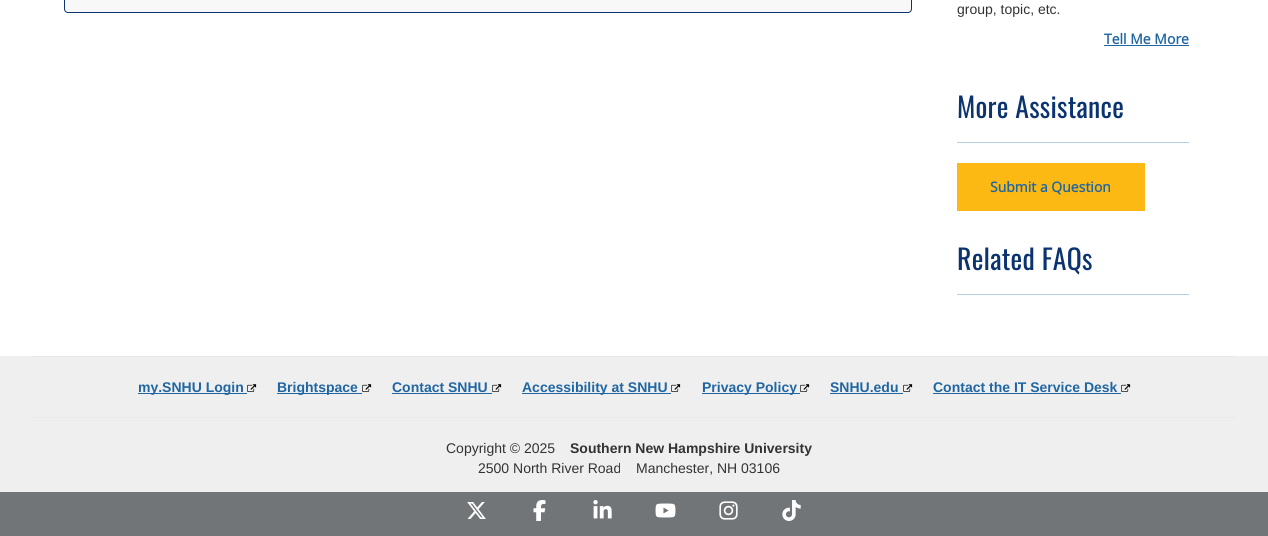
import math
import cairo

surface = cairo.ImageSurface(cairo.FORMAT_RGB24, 1268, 536)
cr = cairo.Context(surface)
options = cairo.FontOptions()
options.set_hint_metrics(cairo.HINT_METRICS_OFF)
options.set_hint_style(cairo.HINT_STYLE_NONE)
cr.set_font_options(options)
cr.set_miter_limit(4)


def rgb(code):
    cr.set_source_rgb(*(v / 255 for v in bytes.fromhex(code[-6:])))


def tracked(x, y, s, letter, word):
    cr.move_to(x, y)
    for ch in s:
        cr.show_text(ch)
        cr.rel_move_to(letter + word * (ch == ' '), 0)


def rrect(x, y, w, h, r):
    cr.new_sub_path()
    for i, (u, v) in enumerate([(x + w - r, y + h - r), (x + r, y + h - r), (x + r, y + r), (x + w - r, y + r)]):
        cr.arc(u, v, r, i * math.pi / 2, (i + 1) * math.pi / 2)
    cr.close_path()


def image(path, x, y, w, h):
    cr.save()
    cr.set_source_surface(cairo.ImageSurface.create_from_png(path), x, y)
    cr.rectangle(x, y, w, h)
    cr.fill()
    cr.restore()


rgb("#ffffff")
cr.paint()
rgb("#f8f8f8")
rrect(64.5, -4.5, 847, 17, 3.5)
cr.fill_preserve()
rgb("#0e356f")
cr.set_line_width(1)
cr.stroke()
for x, y, w, h, color in [
    (1104, 45, 85, 1, "#2066a2"),
    (957, 142, 232, 1, "#b5cde0"),
    (957, 163, 188, 48, "#fdb913"),
    (957, 294, 232, 1, "#b5cde0"),
    (0, 356, 1268, 136, "#efefef"),
    (32, 356, 1204, 1, "#e9e9e9"),
    (138, 393, 109, 1, "#2066a2"),
]:
    rgb(color)
    cr.rectangle(x, y, w, h)
    cr.fill()
image("img/1.png", 247, 384, 10, 8)
cr.rectangle(277, 393, 85, 1)
cr.fill()
image("img/1.png", 362, 384, 10, 8)
cr.rectangle(392, 393, 100, 1)
cr.fill()
image("img/1.png", 492, 384, 10, 8)
cr.rectangle(522, 393, 149, 1)
cr.fill()
image("img/1.png", 671, 384, 10, 8)
cr.rectangle(702, 393, 98, 1)
cr.fill()
image("img/1.png", 800, 384, 10, 8)
cr.rectangle(830, 393, 73, 1)
cr.fill()
image("img/1.png", 903, 384, 10, 8)
cr.rectangle(933, 393, 188, 1)
cr.fill()
image("img/1.png", 1121, 384, 10, 8)
rgb("#e9e9e9")
cr.rectangle(32, 417, 1204, 1)
cr.fill()
rgb("#727577")
cr.rectangle(0, 492, 1268, 44)
cr.fill()
image("img/2.png", 467, 502, 19, 17)
image("img/3.png", 533, 500, 13, 21)
image("img/4.png", 593, 500, 19, 19)
image("img/5.png", 655, 503, 21, 15)
image("img/6.png", 719, 501, 19, 19)
image("img/7.png", 782, 500, 19, 21)
cr.select_font_face("Liberation Sans")
cr.set_font_size(14)
rgb("#333333")
cr.move_to(957, 14)
cr.show_text("group, topic, etc.")
cr.select_font_face("Open Sans", cairo.FONT_SLANT_NORMAL, cairo.FONT_WEIGHT_BOLD)
rgb("#2066a2")
cr.move_to(1104, 44)
cr.show_text("Tell Me More")
cr.select_font_face("Oswald")
cr.set_font_size(27.75)
rgb("#0a3370")
tracked(957, 118, "More Assistance", 0.25, 0)
cr.select_font_face("Open Sans", cairo.FONT_SLANT_NORMAL, cairo.FONT_WEIGHT_BOLD)
cr.set_font_size(14)
rgb("#2066a2")
cr.move_to(990, 192)
cr.show_text("Submit a Question")
cr.select_font_face("Oswald")
cr.set_font_size(27.75)
rgb("#0a3370")
tracked(957, 270, "Related FAQs", 0.25, 0)
cr.select_font_face("Liberation Sans", cairo.FONT_SLANT_NORMAL, cairo.FONT_WEIGHT_BOLD)
cr.set_font_size(14)
rgb("#2066a2")
for x, y, s in [
    (138, 392, "my.SNHU Login"),
    (277, 392, "Brightspace"),
    (392, 392, "Contact SNHU"),
    (522, 392, "Accessibility at SNHU"),
    (702, 392, "Privacy Policy"),
    (830, 392, "SNHU.edu"),
    (933, 392, "Contact the IT Service Desk"),
]:
    cr.move_to(x, y)
    cr.show_text(s)
cr.select_font_face("Liberation Sans")
rgb("#333333")
cr.move_to(446, 453)
cr.show_text("Copyright © 2025")
cr.select_font_face("Liberation Sans", cairo.FONT_SLANT_NORMAL, cairo.FONT_WEIGHT_BOLD)
cr.move_to(570, 453)
cr.show_text("Southern New Hampshire University")
cr.select_font_face("Liberation Sans")
cr.move_to(478, 473)
cr.show_text("2500 North River Road")
cr.move_to(636, 473)
cr.show_text("Manchester, NH 03106")
surface.write_to_png("page.png")
